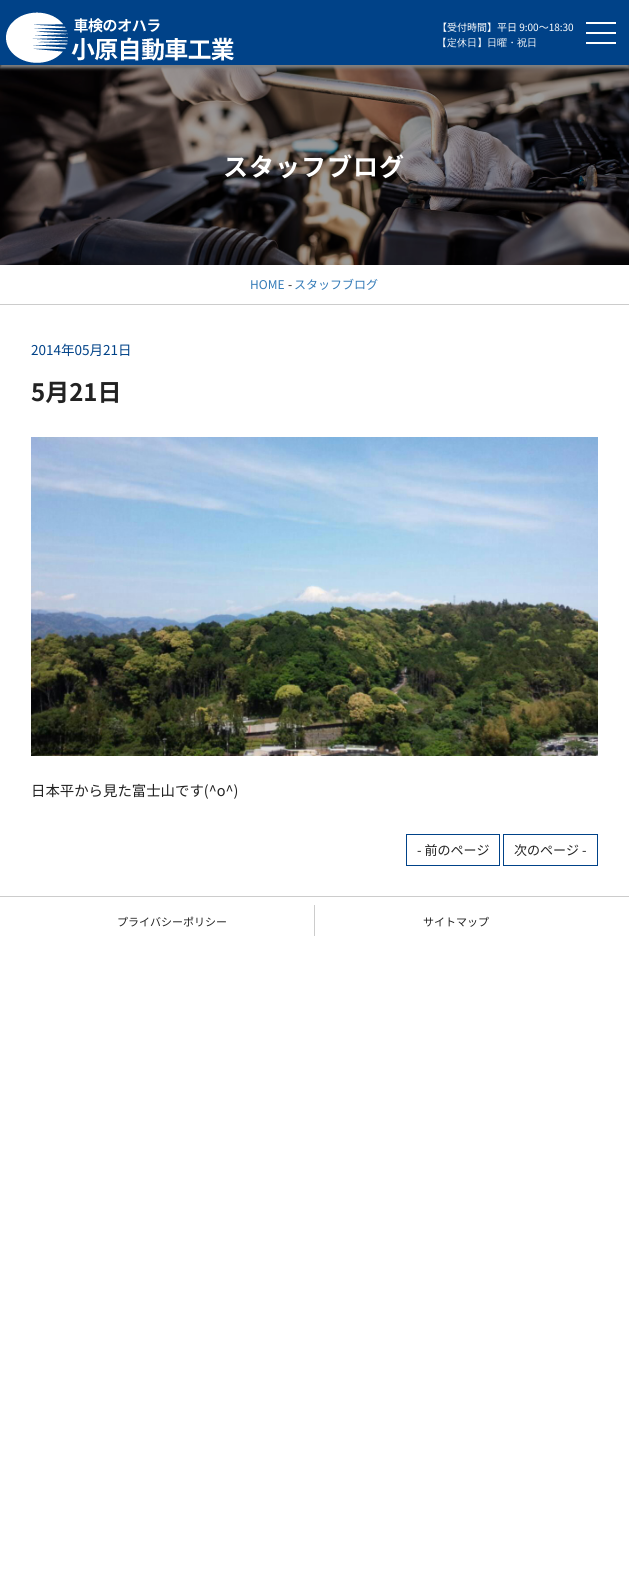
import math
import cairo

surface = cairo.ImageSurface(cairo.FORMAT_RGB24, 629, 1581)
cr = cairo.Context(surface)
options = cairo.FontOptions()
options.set_hint_metrics(cairo.HINT_METRICS_OFF)
options.set_hint_style(cairo.HINT_STYLE_NONE)
cr.set_font_options(options)
cr.set_miter_limit(4)


def rgb(code):
    cr.set_source_rgb(*(v / 255 for v in bytes.fromhex(code[-6:])))


def tracked(x, y, s, letter, word):
    cr.move_to(x, y)
    for ch in s:
        cr.show_text(ch)
        cr.rel_move_to(letter + word * (ch == ' '), 0)


def rrect(x, y, w, h, r):
    cr.new_sub_path()
    for i, (u, v) in enumerate([(x + w - r, y + h - r), (x + r, y + h - r), (x + r, y + r), (x + w - r, y + r)]):
        cr.arc(u, v, r, i * math.pi / 2, (i + 1) * math.pi / 2)
    cr.close_path()


def soft_shadow(x, y, w, h, r, blur, alpha):
    cr.push_group_with_content(cairo.CONTENT_ALPHA)
    cr.set_operator(cairo.OPERATOR_SOURCE)
    for i in range(15, -16, -2):
        e = blur * i / 6
        if min(w, h) + 2 * e > 0:
            cr.set_source_rgba(0, 0, 0, alpha * math.erfc((i - 1) / 8.5) / 2)
            rrect(x - e, y - e, w + 2 * e, h + 2 * e, max(0, min(r + e + blur * .6, min(w, h) / 2 + e)))
            cr.fill()
    cr.mask(cr.pop_group())


def image(path, x, y, w, h):
    cr.save()
    cr.set_source_surface(cairo.ImageSurface.create_from_png(path), x, y)
    cr.rectangle(x, y, w, h)
    cr.fill()
    cr.restore()


rgb("#ffffff")
cr.paint()
image("img/2.png", 0, 65, 629, 200)
rgb("#808080")
soft_shadow(0, 3, 629, 65, 0, 1.5, 1)
rgb("#004288")
cr.rectangle(0, 0, 629, 65)
cr.fill()
image("img/1.png", 6, 12, 228, 51)
for x, y, w, h, color in [
    (586, 22, 30, 2, "#ffffff"),
    (586, 32, 30, 2, "#ffffff"),
    (586, 42, 30, 2, "#ffffff"),
    (0, 304, 629, 1, "#cccccc"),
]:
    rgb(color)
    cr.rectangle(x, y, w, h)
    cr.fill()
image("img/3.png", 31, 437, 567, 319)
cr.rectangle(406.5, 834.5, 93, 31)
rgb("#004288")
cr.set_line_width(1)
cr.stroke()
cr.rectangle(503.5, 834.5, 94, 31)
cr.stroke()
rgb("#cccccc")
cr.rectangle(0, 896, 629, 1)
cr.fill()
cr.rectangle(314, 905, 1, 31)
cr.fill()
cr.select_font_face("Noto Sans JP")
cr.set_font_size(10)
rgb("#ffffff")
cr.move_to(437, 31)
cr.show_text("【受付時間】平日 9:00～18:30")
cr.select_font_face("WenQuanYi Zen Hei Medium")
cr.move_to(437, 46)
cr.show_text("【定休日】日曜・祝日")
cr.select_font_face("Noto Sans JP", cairo.FONT_SLANT_NORMAL, cairo.FONT_WEIGHT_BOLD)
cr.set_font_size(25)
tracked(223, 176, "スタッフブログ", 1, 0)
cr.select_font_face("Noto Sans JP")
cr.set_font_size(12)
rgb("#337ab7")
cr.move_to(250, 289)
cr.show_text("HOME")
rgb("#222222")
cr.move_to(288, 289)
cr.show_text("-")
rgb("#337ab7")
cr.move_to(294, 289)
cr.show_text("スタッフブログ")
cr.set_font_size(13.5)
rgb("#004288")
cr.move_to(31, 355)
cr.show_text("2014年05月21日")
cr.select_font_face("Noto Sans JP", cairo.FONT_SLANT_NORMAL, cairo.FONT_WEIGHT_BOLD)
cr.set_font_size(24)
rgb("#222222")
cr.move_to(31, 401)
cr.show_text("5月21日")
cr.select_font_face("Noto Sans JP")
cr.set_font_size(14.4)
cr.move_to(31, 796)
cr.show_text("日本平から見た富士山です(^o^)")
cr.set_font_size(13)
cr.move_to(417, 855)
cr.show_text("- 前のページ")
cr.move_to(514, 855)
cr.show_text("次のページ -")
cr.set_font_size(11)
cr.move_to(117, 926)
cr.show_text("プライバシーポリシー")
cr.move_to(423, 926)
cr.show_text("サイトマップ")
surface.write_to_png("page.png")
